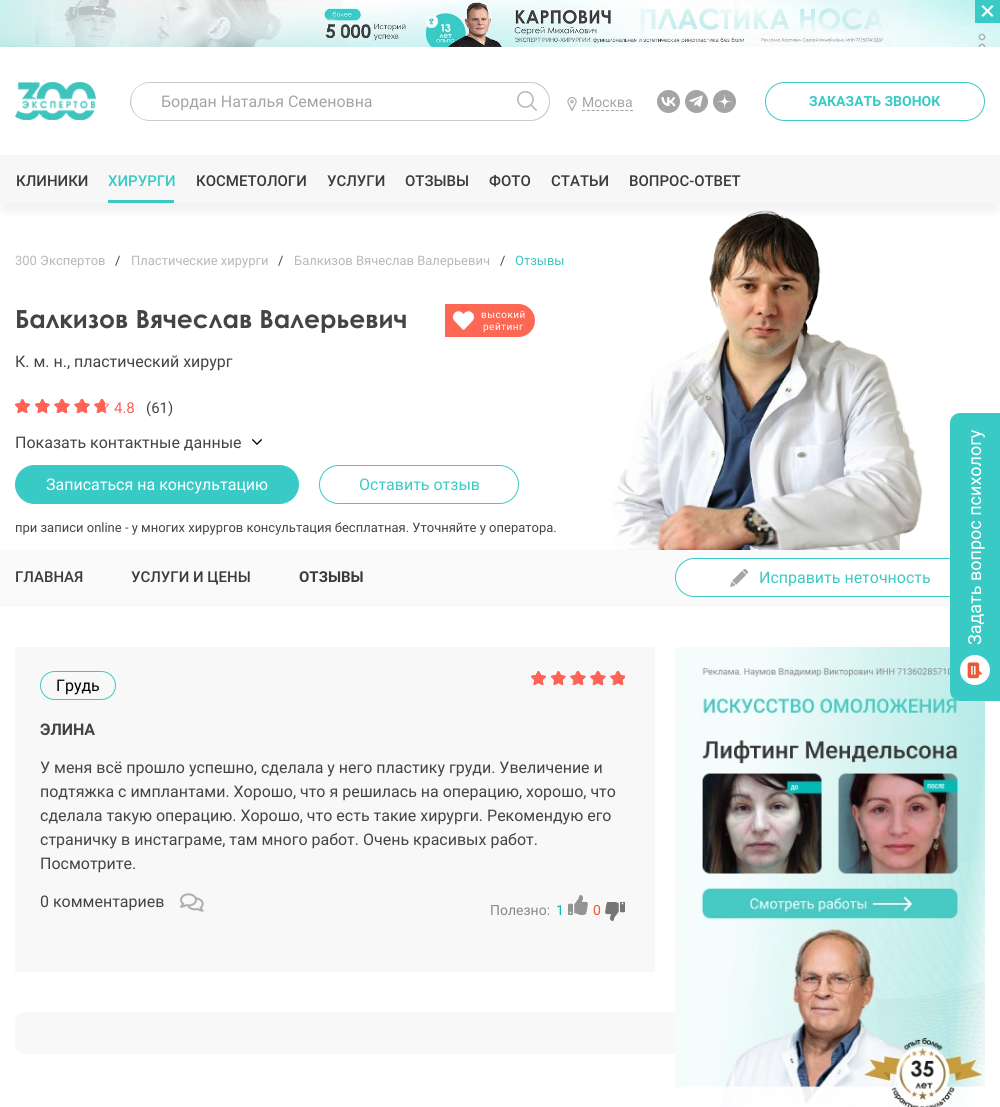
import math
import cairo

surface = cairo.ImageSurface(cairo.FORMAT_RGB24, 1000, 1107)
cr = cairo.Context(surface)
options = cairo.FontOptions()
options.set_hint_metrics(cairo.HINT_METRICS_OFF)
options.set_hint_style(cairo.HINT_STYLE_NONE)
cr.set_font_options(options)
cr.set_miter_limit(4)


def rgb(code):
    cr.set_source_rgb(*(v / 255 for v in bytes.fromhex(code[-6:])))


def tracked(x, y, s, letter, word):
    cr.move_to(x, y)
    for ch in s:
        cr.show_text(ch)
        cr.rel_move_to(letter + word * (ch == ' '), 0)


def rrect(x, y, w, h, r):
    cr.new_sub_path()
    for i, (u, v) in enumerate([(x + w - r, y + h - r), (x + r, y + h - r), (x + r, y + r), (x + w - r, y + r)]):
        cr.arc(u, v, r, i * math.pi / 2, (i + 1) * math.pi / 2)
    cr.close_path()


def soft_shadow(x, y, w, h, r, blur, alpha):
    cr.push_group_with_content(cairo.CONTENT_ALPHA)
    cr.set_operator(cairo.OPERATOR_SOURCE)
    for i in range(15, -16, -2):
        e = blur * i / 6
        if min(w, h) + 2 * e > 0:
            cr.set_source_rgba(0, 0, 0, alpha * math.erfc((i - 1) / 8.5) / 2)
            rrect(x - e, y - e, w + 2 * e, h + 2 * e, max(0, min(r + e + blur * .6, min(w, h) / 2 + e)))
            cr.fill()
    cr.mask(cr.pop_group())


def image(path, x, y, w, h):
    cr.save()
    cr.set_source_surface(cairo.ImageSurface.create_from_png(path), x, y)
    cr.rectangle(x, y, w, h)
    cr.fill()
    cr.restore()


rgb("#ffffff")
cr.paint()
image("img/1.png", 0, 0, 1000, 47)
rgb("#000000")
soft_shadow(980, 35, 4, 4, 2, 1, 1)
rgb("#ffffff")
cr.arc(982, 37, 2, 0, 2 * math.pi)
cr.fill()
cr.save()
cr.rectangle(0, 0, 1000, 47)
cr.clip()
rgb("#000000")
soft_shadow(980, 45, 4, 4, 2, 1, 1)
cr.restore()
cr.new_path()
cr.move_to(982, 45)
cr.curve_to(983, 45, 984, 46, 984, 47)
cr.line_to(980, 47)
cr.curve_to(980, 46, 981, 45, 982, 45)
cr.close_path()
cr.fill()
rgb("#3acac6")
cr.rectangle(975, 0, 25, 23)
cr.fill()
rgb("#ffffff")
cr.new_path()
cr.move_to(983, 5)
cr.line_to(993.5, 15.5)
cr.line_to(992, 17)
cr.line_to(981.5, 6.5)
cr.close_path()
cr.fill()
cr.new_path()
cr.move_to(981.5, 15.5)
cr.line_to(992, 5)
cr.line_to(993.5, 6.5)
cr.line_to(983, 17)
cr.close_path()
cr.fill()
image("img/2.png", 15, 82, 81, 38)
rgb("#cbcbcb")
cr.set_fill_rule(cairo.FILL_RULE_EVEN_ODD)
cr.new_path()
cr.move_to(150, 82)
cr.line_to(512, 82)
cr.line_to(512, 121)
cr.line_to(150, 121)
cr.curve_to(139, 121, 130, 112, 130, 102)
cr.curve_to(130, 91, 139, 82, 150, 82)
cr.close_path()
cr.move_to(150, 83)
cr.line_to(512, 83)
cr.line_to(512, 120)
cr.line_to(150, 120)
cr.curve_to(125, 120, 125, 83, 150, 83)
cr.close_path()
cr.fill()
cr.new_path()
cr.move_to(512, 82)
cr.line_to(530.5, 82)
cr.curve_to(541.5, 82, 550, 90.5, 550, 101.5)
cr.curve_to(550, 112.5, 541.5, 121, 530.5, 121)
cr.line_to(512, 121)
cr.close_path()
cr.move_to(512, 83)
cr.line_to(530.5, 83)
cr.curve_to(540.5, 83, 549, 91.5, 549, 101.5)
cr.curve_to(549, 111.5, 540.5, 120, 530.5, 120)
cr.line_to(512, 120)
cr.close_path()
cr.fill()
image("img/3.png", 517, 91, 20, 20)
image("img/4.png", 567, 97, 10, 14)
cr.new_path()
cr.move_to(582, 110.5)
cr.line_to(633, 110.5)
rgb("#a4a4a4")
cr.set_line_width(1)
cr.set_dash([3, 1.8])
cr.stroke()
cr.arc(668.5, 101.5, 11, 0, 2 * math.pi)
cr.fill_preserve()
cr.set_dash([])
cr.stroke()
image("img/5.png", 661, 97, 15, 10)
cr.arc(696.5, 101.5, 11, 0, 2 * math.pi)
cr.fill_preserve()
cr.stroke()
image("img/6.png", 689, 95, 14, 12)
cr.arc(724.5, 101.5, 11, 0, 2 * math.pi)
cr.fill_preserve()
cr.stroke()
image("img/7.png", 717, 94, 15, 15)
rrect(765.5, 82.5, 219, 38, 19)
rgb("#3acac6")
cr.stroke()
image("img/11.png", 611, 210, 311, 340)
rgb("#000000")
soft_shadow(2, 167, 996, 44, 0, 5, 0.06)
rgb("#f7f7f7")
cr.rectangle(0, 155, 1000, 48)
cr.fill()
rgb("#3acac6")
cr.rectangle(108, 200, 66, 3)
cr.fill()
rgb("#fd6854")
cr.new_path()
cr.move_to(445, 304)
cr.line_to(518.5, 304)
cr.curve_to(527.5, 304, 535, 311.5, 535, 320.5)
cr.curve_to(535, 329.5, 527.5, 337, 518.5, 337)
cr.line_to(445, 337)
cr.close_path()
cr.fill()
image("img/8.png", 453, 311, 21, 19)
image("img/9.png", 15, 399, 90, 14)
image("img/10.png", 15, 399, 94, 14)
image("img/12.png", 252, 439, 10, 6)
rgb("#3acac6")
rrect(15.5, 465.5, 283, 38, 19)
cr.fill_preserve()
cr.stroke()
rrect(319.5, 465.5, 199, 38, 19)
cr.stroke()
rgb("#fafafa")
cr.rectangle(0, 550, 950, 57)
cr.fill()
rgb("#ffffff")
rrect(675.5, 558.5, 309, 38, 19)
cr.fill_preserve()
rgb("#3acac6")
cr.stroke()
image("img/13.png", 730, 569, 18, 18)
rgb("#f8f8f8")
cr.rectangle(15, 647, 640, 325)
cr.fill()
rrect(40.5, 671.5, 75, 28, 14)
rgb("#3acac6")
cr.stroke()
image("img/14.png", 531, 671, 94, 14)
image("img/15.png", 531, 671, 94, 14)
image("img/16.png", 180, 893, 24, 19)
image("img/17.png", 568, 895, 20, 20)
image("img/18.png", 605, 902, 20, 19)
rgb("#f8f8f8")
rrect(15, 1012, 682, 42, 10)
cr.fill()
image("img/19.png", 675, 647, 310, 460)
rgb("#3acac6")
cr.set_fill_rule(cairo.FILL_RULE_WINDING)
cr.new_path()
cr.move_to(950, 691)
cr.line_to(950, 423)
cr.curve_to(950, 418, 954, 413, 960, 413)
cr.line_to(1000, 413)
cr.line_to(1000, 701)
cr.line_to(960, 701)
cr.curve_to(954, 701, 950, 696, 950, 691)
cr.close_path()
cr.fill()
rgb("#ffffff")
cr.arc(975, 670, 15, 0, 2 * math.pi)
cr.fill()
image("img/20.png", 967, 662, 15, 17)
cr.select_font_face("Roboto")
cr.set_font_size(16)
rgb("#a4a4a4")
cr.move_to(161, 107)
cr.show_text("Бордан Наталья Семеновна")
cr.set_font_size(14)
cr.move_to(582, 107)
cr.show_text("Москва")
cr.select_font_face("Roboto", cairo.FONT_SLANT_NORMAL, cairo.FONT_WEIGHT_BOLD)
rgb("#3acac6")
cr.move_to(809, 106)
cr.show_text("ЗАКАЗАТЬ ЗВОНОК")
cr.select_font_face("Roboto Medium")
cr.set_font_size(15)
rgb("#3b3b3b")
cr.move_to(16, 186)
cr.show_text("КЛИНИКИ")
rgb("#3acac6")
cr.move_to(108, 186)
cr.show_text("ХИРУРГИ")
rgb("#3b3b3b")
for x, y, s in [
    (196, 186, "КОСМЕТОЛОГИ"),
    (327, 186, "УСЛУГИ"),
    (405, 186, "ОТЗЫВЫ"),
    (489, 186, "ФОТО"),
    (551, 186, "СТАТЬИ"),
    (629, 186, "ВОПРОС-ОТВЕТ"),
]:
    cr.move_to(x, y)
    cr.show_text(s)
cr.select_font_face("Roboto")
cr.set_font_size(13)
rgb("#b8b8b8")
cr.move_to(15, 265)
cr.show_text("300 Экспертов")
rgb("#444444")
cr.move_to(115, 265)
cr.show_text("/")
rgb("#b8b8b8")
cr.move_to(131, 265)
cr.show_text("Пластические хирурги")
rgb("#444444")
cr.move_to(278, 265)
cr.show_text("/")
rgb("#b8b8b8")
cr.move_to(294, 265)
cr.show_text("Балкизов Вячеслав Валерьевич")
rgb("#444444")
cr.move_to(500, 265)
cr.show_text("/")
rgb("#3ec3bd")
cr.move_to(515, 265)
cr.show_text("Отзывы")
cr.select_font_face("Century Gothic", cairo.FONT_SLANT_NORMAL, cairo.FONT_WEIGHT_BOLD)
cr.set_font_size(25)
rgb("#444444")
cr.move_to(15, 328)
cr.show_text("Балкизов Вячеслав Валерьевич")
cr.select_font_face("Roboto")
cr.set_font_size(10)
rgb("#ffffff")
tracked(481, 318, "высокий", 0.5, 0)
tracked(483, 330, "рейтинг", 0.5, 0)
cr.set_font_size(16)
rgb("#444444")
cr.move_to(15, 367)
cr.show_text("К. м. н., пластический хирург")
cr.set_font_size(15)
rgb("#fd5e57")
cr.move_to(114, 413)
cr.show_text("4.8")
rgb("#444444")
cr.move_to(146, 413)
cr.show_text("(61)")
cr.set_font_size(16)
cr.move_to(15, 448)
cr.show_text("Показать контактные данные")
rgb("#ffffff")
cr.move_to(46, 490)
cr.show_text("Записаться на консультацию")
rgb("#3acac6")
cr.move_to(359, 490)
cr.show_text("Оставить отзыв")
cr.set_font_size(13)
rgb("#444444")
cr.move_to(15, 532)
cr.show_text("при записи online - у многих хирургов консультация бесплатная. Уточняйте у оператора.")
cr.select_font_face("Roboto Medium")
cr.set_font_size(15)
rgb("#3b3b3b")
cr.move_to(15, 582)
cr.show_text("ГЛАВНАЯ")
cr.move_to(131, 582)
cr.show_text("УСЛУГИ И ЦЕНЫ")
cr.select_font_face("Roboto", cairo.FONT_SLANT_NORMAL, cairo.FONT_WEIGHT_BOLD)
cr.move_to(299, 582)
cr.show_text("ОТЗЫВЫ")
cr.select_font_face("Roboto")
cr.set_font_size(16)
rgb("#3acac6")
cr.move_to(759, 583)
cr.show_text("Исправить неточность")
rgb("#000000")
cr.move_to(56, 691)
cr.show_text("Грудь")
cr.select_font_face("Roboto", cairo.FONT_SLANT_NORMAL, cairo.FONT_WEIGHT_BOLD)
rgb("#444444")
cr.move_to(40, 735)
cr.show_text("ЭЛИНА")
cr.select_font_face("Roboto")
for x, y, s in [
    (40, 773, "У меня всё прошло успешно, сделала у него пластику груди. Увеличение и"),
    (40, 797, "подтяжка с имплантами. Хорошо, что я решилась на операцию, хорошо, что"),
    (40, 821, "сделала такую операцию. Хорошо, что есть такие хирурги. Рекомендую его"),
    (40, 845, "страничку в инстаграме, там много работ. Очень красивых работ."),
    (40, 869, "Посмотрите."),
    (40, 907, "0 комментариев"),
]:
    cr.move_to(x, y)
    cr.show_text(s)
cr.set_font_size(14)
rgb("#898888")
cr.move_to(490, 915)
cr.show_text("Полезно:")
rgb("#0ab9b4")
cr.move_to(556, 915)
cr.show_text("1")
rgb("#e95b38")
cr.move_to(593, 915)
cr.show_text("0")
cr.set_font_size(18)
rgb("#ffffff")
cr.save()
cr.translate(981, 645)
cr.rotate(-90 * math.pi / 180)
cr.move_to(0, 0)
cr.show_text("Задать вопрос психологу")
cr.restore()
surface.write_to_png("page.png")
